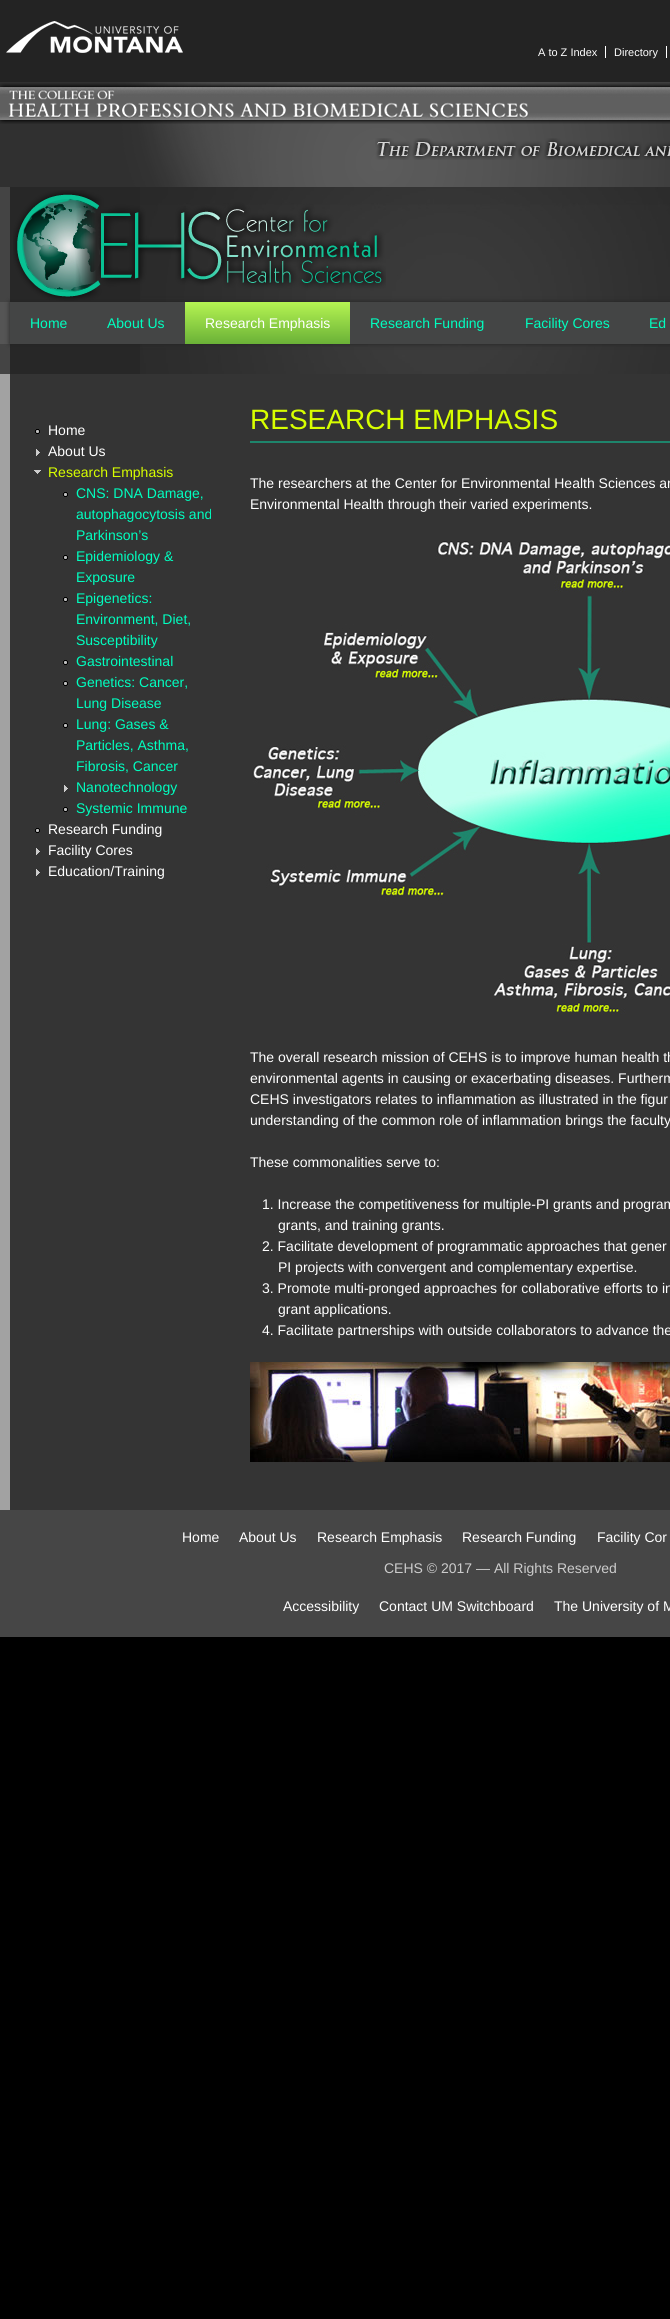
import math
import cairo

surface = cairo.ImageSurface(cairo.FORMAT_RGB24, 670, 2319)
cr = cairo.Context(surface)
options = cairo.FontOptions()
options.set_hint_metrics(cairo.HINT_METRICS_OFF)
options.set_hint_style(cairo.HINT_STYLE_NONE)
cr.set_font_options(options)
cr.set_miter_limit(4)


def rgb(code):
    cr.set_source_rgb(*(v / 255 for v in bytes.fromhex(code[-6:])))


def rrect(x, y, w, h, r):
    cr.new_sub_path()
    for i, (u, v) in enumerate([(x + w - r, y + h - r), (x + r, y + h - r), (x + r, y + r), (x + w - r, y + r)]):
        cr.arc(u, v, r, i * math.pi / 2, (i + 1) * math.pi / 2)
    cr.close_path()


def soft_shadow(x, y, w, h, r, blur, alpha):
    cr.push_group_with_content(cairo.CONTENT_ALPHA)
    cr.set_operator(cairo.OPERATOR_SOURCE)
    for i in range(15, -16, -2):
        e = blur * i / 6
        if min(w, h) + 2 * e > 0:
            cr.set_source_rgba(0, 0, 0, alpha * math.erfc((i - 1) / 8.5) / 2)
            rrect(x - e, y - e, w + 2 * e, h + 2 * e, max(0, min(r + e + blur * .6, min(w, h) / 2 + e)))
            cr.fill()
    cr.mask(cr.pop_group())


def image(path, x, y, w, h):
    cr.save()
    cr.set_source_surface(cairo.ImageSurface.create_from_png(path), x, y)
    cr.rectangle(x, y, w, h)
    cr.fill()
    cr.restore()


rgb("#000000")
cr.paint()
rgb("#232323")
cr.rectangle(0, 0, 670, 82)
cr.fill()
image("img/1.png", 6, 21, 177, 32)
rgb("#ffffff")
cr.rectangle(605, 46, 1, 12)
cr.fill()
cr.rectangle(666, 46, 1, 12)
cr.fill()
image("img/2.png", 0, 82, 670, 105)
image("img/3.png", 0, 83, 670, 41)
image("img/4.png", 375, 138, 295, 22)
rgb("#444444")
cr.rectangle(0, 187, 10, 187)
cr.fill()
rgb("#272727")
cr.rectangle(10, 187, 130, 187)
cr.fill()
image("img/5.png", 140, 187, 530, 187)
image("img/6.png", 13, 190, 373, 111)
for x, y, w, h, color in [
    (0, 374, 10, 1136, "#a2a2a2"),
    (10, 374, 660, 1136, "#343434"),
    (0, 302, 10, 42, "#555555"),
]:
    rgb(color)
    cr.rectangle(x, y, w, h)
    cr.fill()
rgb("#222222")
soft_shadow(10, 302, 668, 42, 0, 2.5, 1)
rgb("#444545")
cr.rectangle(10, 302, 660, 42)
cr.fill()
gradient = cairo.LinearGradient(185, 302, 185, 344)
gradient.add_color_stop_rgba(0, 0.71, 0.957, 0.322, 1)
gradient.add_color_stop_rgba(1, 0.416, 0.694, 0.216, 1)
cr.set_source(gradient)
cr.rectangle(185, 302, 165, 42)
cr.fill()
image("img/7.png", 35, 429, 5, 5)
image("img/8.png", 36, 449, 4, 7)
image("img/9.png", 34, 470, 7, 4)
image("img/7.png", 63, 492, 5, 5)
image("img/7.png", 63, 555, 5, 5)
image("img/7.png", 63, 597, 5, 5)
image("img/7.png", 63, 660, 5, 5)
image("img/7.png", 63, 681, 5, 5)
image("img/7.png", 63, 723, 5, 5)
image("img/8.png", 64, 785, 4, 7)
image("img/7.png", 63, 807, 5, 5)
image("img/7.png", 35, 828, 5, 5)
image("img/8.png", 36, 848, 4, 7)
image("img/8.png", 36, 869, 4, 7)
rgb("#1e856c")
cr.rectangle(250, 441, 420, 2)
cr.fill()
image("img/10.png", 252, 541, 418, 474)
image("img/11.png", 250, 1362, 420, 100)
rgb("#464646")
cr.rectangle(0, 1510, 670, 127)
cr.fill()
cr.select_font_face("Liberation Sans")
cr.set_font_size(11)
rgb("#ffffff")
cr.move_to(538, 56)
cr.show_text("A to Z Index")
cr.move_to(614, 56)
cr.show_text("Directory")
cr.set_font_size(14)
rgb("#00ffc0")
cr.move_to(30, 328)
cr.show_text("Home")
cr.move_to(107, 328)
cr.show_text("About Us")
rgb("#ffffff")
cr.move_to(205, 328)
cr.show_text("Research Emphasis")
rgb("#00ffc0")
for x, y, s in [
    (370, 328, "Research Funding"),
    (525, 328, "Facility Cores"),
    (649, 328, "Ed"),
]:
    cr.move_to(x, y)
    cr.show_text(s)
rgb("#ffffff")
cr.move_to(48, 435)
cr.show_text("Home")
cr.move_to(48, 456)
cr.show_text("About Us")
rgb("#d8ff00")
cr.move_to(48, 477)
cr.show_text("Research Emphasis")
rgb("#00ffc0")
for x, y, s in [
    (76, 498, "CNS: DNA Damage,"),
    (76, 519, "autophagocytosis and"),
    (76, 540, "Parkinson’s"),
    (76, 561, "Epidemiology &"),
    (76, 582, "Exposure"),
    (76, 603, "Epigenetics:"),
    (76, 624, "Environment, Diet,"),
    (76, 645, "Susceptibility"),
    (76, 666, "Gastrointestinal"),
    (76, 687, "Genetics: Cancer,"),
    (76, 708, "Lung Disease"),
    (76, 729, "Lung: Gases &"),
    (76, 750, "Particles, Asthma,"),
    (76, 771, "Fibrosis, Cancer"),
    (76, 792, "Nanotechnology"),
    (76, 813, "Systemic Immune"),
]:
    cr.move_to(x, y)
    cr.show_text(s)
rgb("#ffffff")
for x, y, s in [
    (48, 834, "Research Funding"),
    (48, 855, "Facility Cores"),
    (48, 876, "Education/Training"),
]:
    cr.move_to(x, y)
    cr.show_text(s)
cr.set_font_size(28)
rgb("#d8ff00")
cr.move_to(250, 429)
cr.show_text("RESEARCH EMPHASIS")
cr.set_font_size(14)
rgb("#ffffff")
for x, y, s in [
    (250, 488, "The researchers at the Center for Environmental Health Sciences ar"),
    (250, 509, "Environmental Health through their varied experiments."),
    (250, 1062, "The overall research mission of CEHS is to improve human health th"),
    (250, 1083, "environmental agents in causing or exacerbating diseases. Furtherm"),
    (250, 1104, "CEHS investigators relates to inflammation as illustrated in the figur"),
    (250, 1125, "understanding of the common role of inflammation brings the faculty"),
    (250, 1167, "These commonalities serve to:"),
    (262, 1209, "1. Increase the competitiveness for multiple-PI grants and program"),
    (278, 1230, "grants, and training grants."),
    (262, 1251, "2. Facilitate development of programmatic approaches that gener"),
    (278, 1272, "PI projects with convergent and complementary expertise."),
    (262, 1293, "3. Promote multi-pronged approaches for collaborative efforts to in"),
    (278, 1314, "grant applications."),
    (262, 1335, "4. Facilitate partnerships with outside collaborators to advance the"),
    (182, 1542, "Home"),
    (239, 1542, "About Us"),
    (317, 1542, "Research Emphasis"),
    (462, 1542, "Research Funding"),
    (597, 1542, "Facility Cor"),
]:
    cr.move_to(x, y)
    cr.show_text(s)
rgb("#cccccc")
cr.move_to(384, 1573)
cr.show_text("CEHS © 2017 — All Rights Reserved")
rgb("#ffffff")
for x, y, s in [
    (283, 1611, "Accessibility"),
    (379, 1611, "Contact UM Switchboard"),
    (554, 1611, "The University of M"),
]:
    cr.move_to(x, y)
    cr.show_text(s)
surface.write_to_png("page.png")
